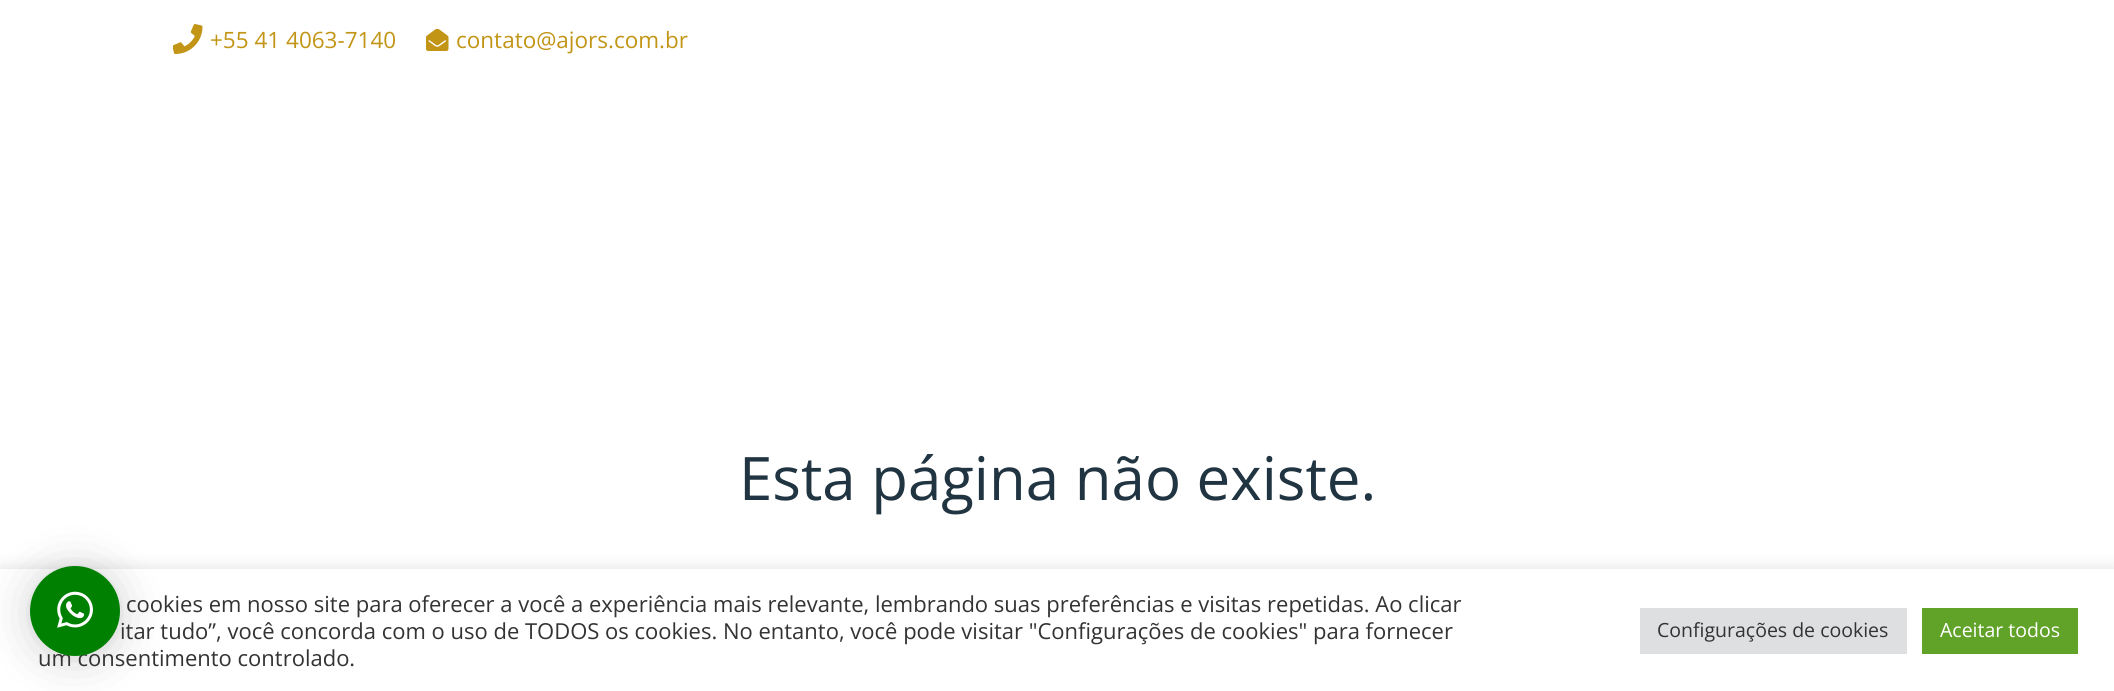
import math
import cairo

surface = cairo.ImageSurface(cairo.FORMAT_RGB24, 2114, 691)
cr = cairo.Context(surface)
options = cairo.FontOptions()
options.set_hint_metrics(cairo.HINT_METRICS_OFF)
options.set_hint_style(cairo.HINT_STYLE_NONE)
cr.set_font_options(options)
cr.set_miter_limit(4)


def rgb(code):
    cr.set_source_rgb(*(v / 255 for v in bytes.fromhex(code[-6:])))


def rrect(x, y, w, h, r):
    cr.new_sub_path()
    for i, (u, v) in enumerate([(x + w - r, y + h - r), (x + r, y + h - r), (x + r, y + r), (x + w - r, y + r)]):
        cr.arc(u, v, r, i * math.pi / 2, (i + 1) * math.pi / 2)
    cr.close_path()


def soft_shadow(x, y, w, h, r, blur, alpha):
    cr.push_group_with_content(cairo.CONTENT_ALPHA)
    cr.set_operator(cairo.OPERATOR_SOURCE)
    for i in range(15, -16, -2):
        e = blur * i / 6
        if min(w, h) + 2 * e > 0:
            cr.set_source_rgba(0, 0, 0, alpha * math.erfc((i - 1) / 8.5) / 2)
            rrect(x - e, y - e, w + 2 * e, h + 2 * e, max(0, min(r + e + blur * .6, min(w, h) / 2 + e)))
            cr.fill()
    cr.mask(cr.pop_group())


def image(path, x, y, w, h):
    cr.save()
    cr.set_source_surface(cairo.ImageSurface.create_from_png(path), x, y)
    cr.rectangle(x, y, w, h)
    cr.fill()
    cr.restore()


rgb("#ffffff")
cr.paint()
image("img/1.png", 173, 24, 30, 30)
image("img/2.png", 426, 29, 23, 22)
rgb("#acabab")
soft_shadow(0, 567, 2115, 123, 0, 7.5, 0.3)
rgb("#ffffff")
cr.rectangle(0, 569, 2114, 122)
cr.fill()
rgb("#000000")
soft_shadow(30, 569, 90, 90, 45, 24, 0.16)
soft_shadow(30, 567, 90, 90, 45, 4.5, 0.06)
rgb("#dedfe0")
cr.rectangle(1640, 608, 267, 46)
cr.fill()
rgb("#61a229")
cr.rectangle(1922, 608, 156, 46)
cr.fill()
cr.select_font_face("Open Sans")
cr.set_font_size(22.5)
rgb("#c29516")
cr.move_to(210, 48)
cr.show_text("+55 41 4063-7140")
cr.move_to(456, 48)
cr.show_text("contato@ajors.com.br")
cr.set_font_size(60)
rgb("#203441")
cr.move_to(739, 500)
cr.show_text("Esta página não existe.")
cr.set_font_size(22)
rgb("#333333")
for x, y, s in [
    (126, 612, "cookies em nosso site para oferecer a você a experiência mais relevante, lembrando suas preferências e visitas repetidas. Ao clicar"),
    (120, 639, "itar tudo”, você concorda com o uso de TODOS os cookies. No entanto, você pode visitar \"Configurações de cookies\" para fornecer"),
    (38, 666, "um consentimento controlado."),
]:
    cr.move_to(x, y)
    cr.show_text(s)
rgb("#008000")
cr.new_path()
cr.arc(75, 611, 45, 0, 2 * math.pi)
cr.fill()
image("img/3.png", 57, 591, 36, 37)
cr.set_font_size(19.5)
rgb("#333333")
cr.move_to(1657, 637)
cr.show_text("Configurações de cookies")
rgb("#ffffff")
cr.move_to(1940, 637)
cr.show_text("Aceitar todos")
surface.write_to_png("page.png")
